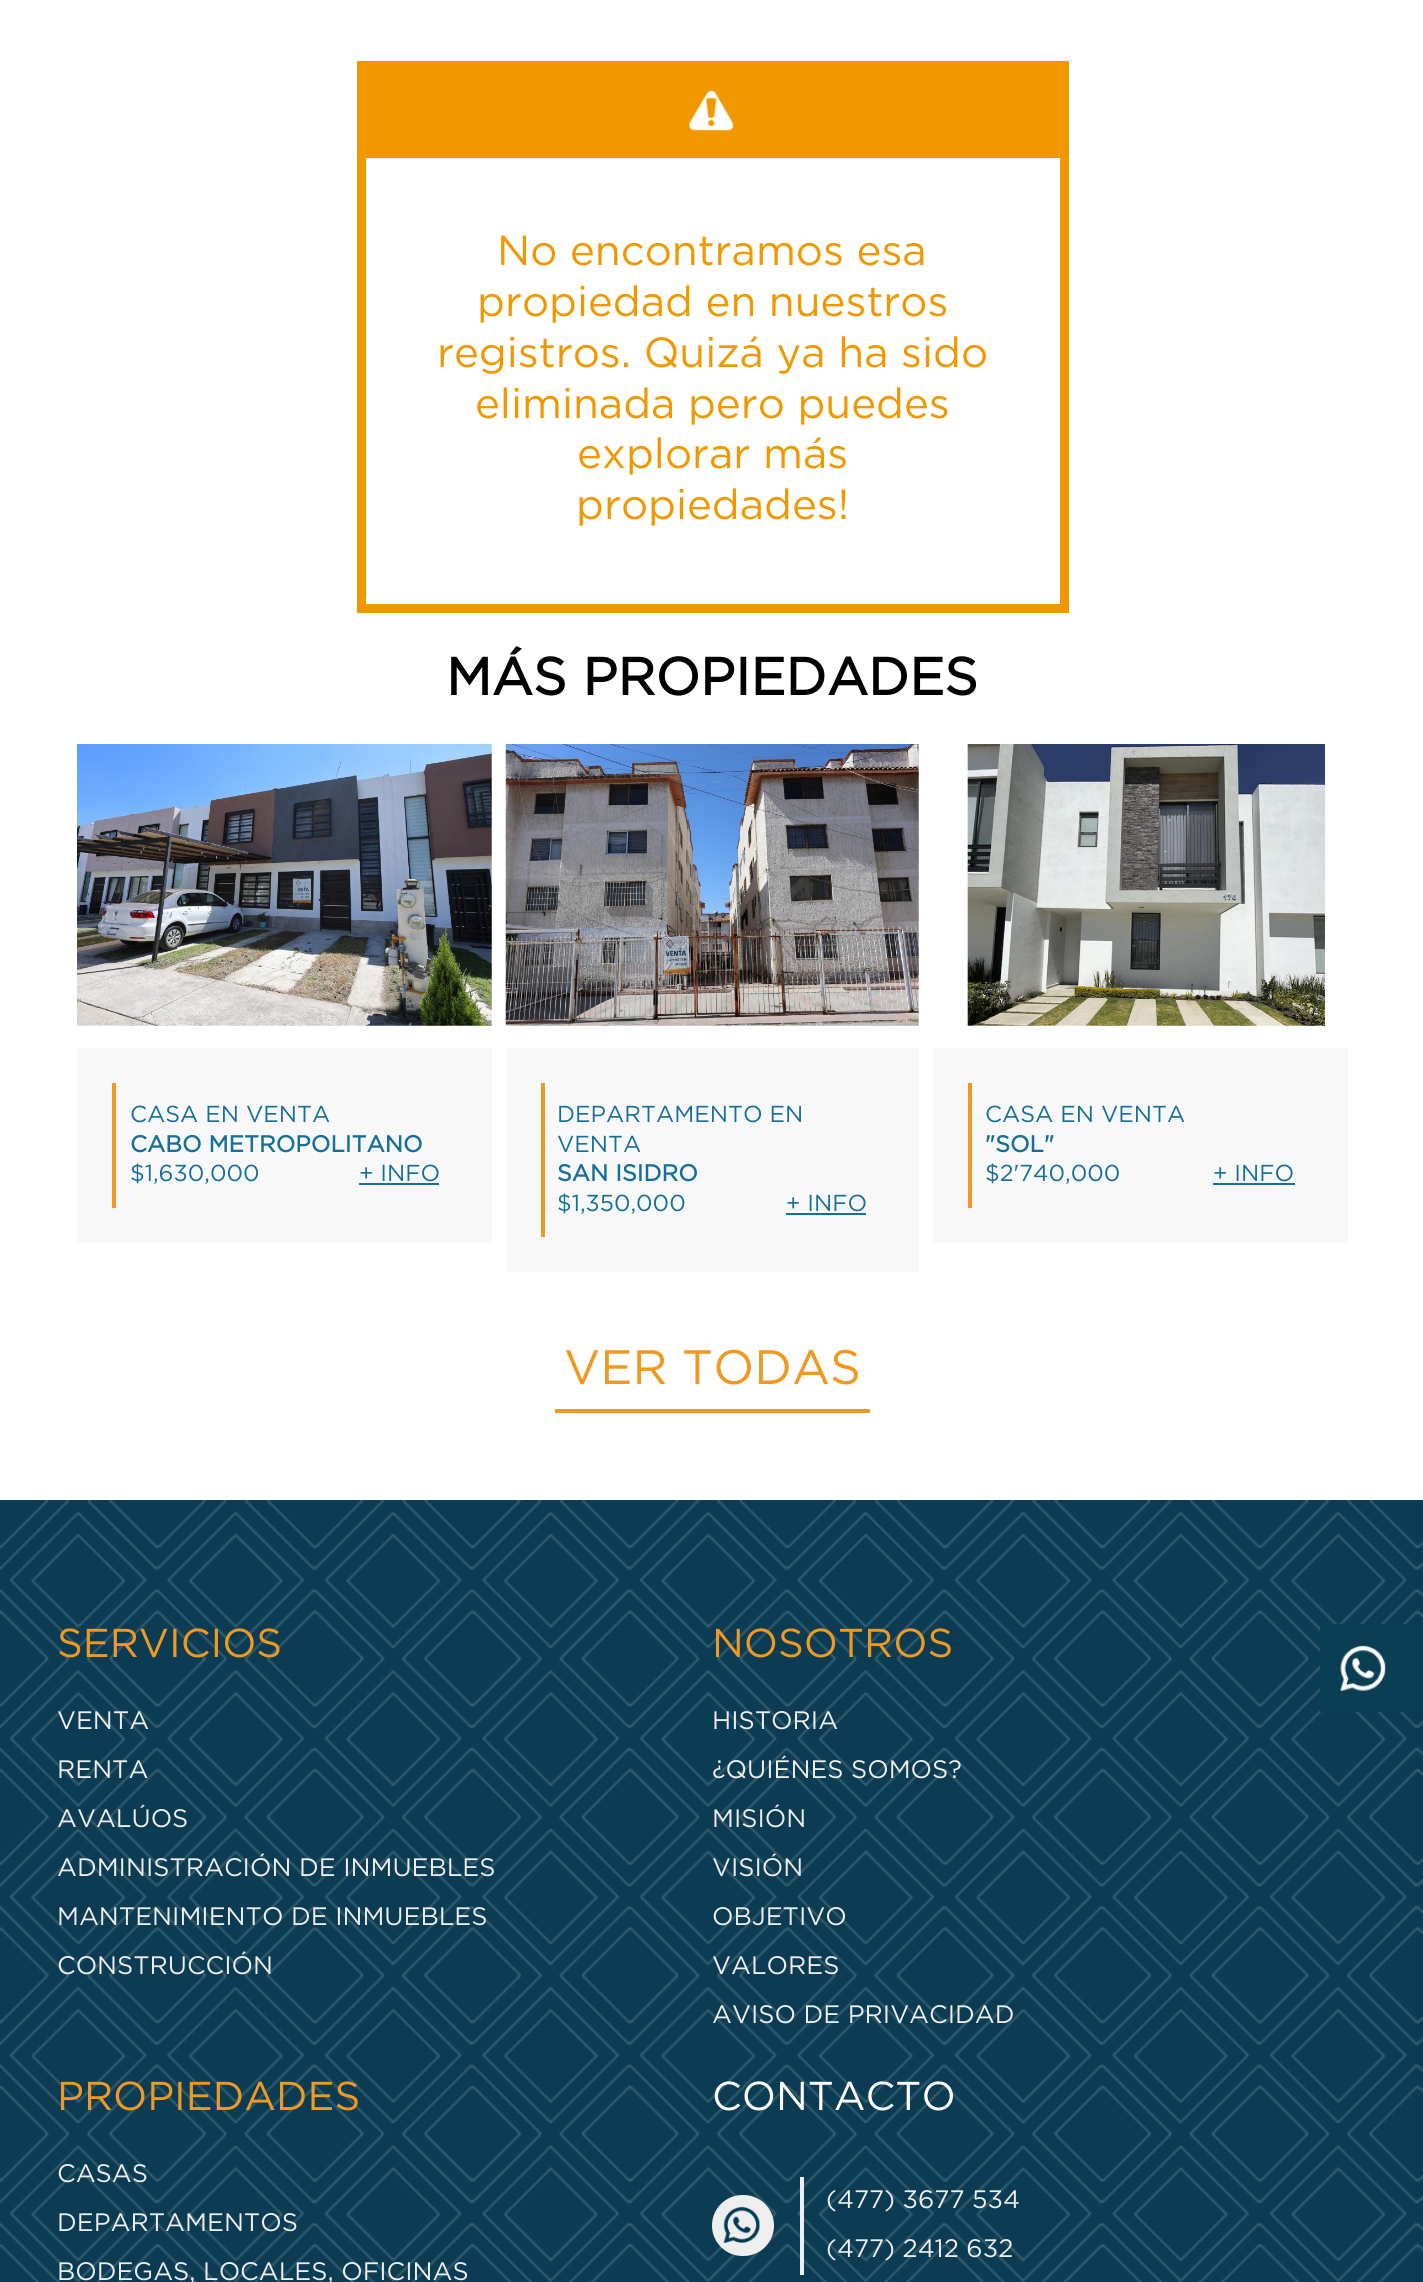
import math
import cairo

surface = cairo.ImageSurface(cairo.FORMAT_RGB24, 1423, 2282)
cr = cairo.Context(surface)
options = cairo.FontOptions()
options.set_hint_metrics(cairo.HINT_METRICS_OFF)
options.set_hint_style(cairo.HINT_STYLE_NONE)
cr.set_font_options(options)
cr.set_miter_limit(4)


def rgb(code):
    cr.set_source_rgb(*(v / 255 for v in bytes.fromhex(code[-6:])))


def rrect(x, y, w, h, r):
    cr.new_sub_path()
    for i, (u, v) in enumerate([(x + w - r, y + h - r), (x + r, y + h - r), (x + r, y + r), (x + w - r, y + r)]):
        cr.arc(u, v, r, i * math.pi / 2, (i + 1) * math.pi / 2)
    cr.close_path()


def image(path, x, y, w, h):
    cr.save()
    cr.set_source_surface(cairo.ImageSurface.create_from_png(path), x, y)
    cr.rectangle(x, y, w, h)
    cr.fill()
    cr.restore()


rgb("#ffffff")
cr.paint()
cr.rectangle(361.5, 153.5, 703, 455)
rgb("#f19800")
cr.set_line_width(9)
cr.stroke()
cr.rectangle(357, 61, 712, 88)
cr.fill()
image("img/1.png", 689, 90, 45, 41)
image("img/2.png", 77, 744, 415, 282)
for x, y, w, h, color in [
    (77, 1048, 415, 195, "#f8f8f8"),
    (112, 1083, 4, 125, "#f09820"),
    (359, 1183, 80, 2, "#166f97"),
]:
    rgb(color)
    cr.rectangle(x, y, w, h)
    cr.fill()
image("img/3.png", 505, 744, 414, 282)
for x, y, w, h, color in [
    (506, 1048, 413, 224, "#f8f8f8"),
    (541, 1083, 4, 154, "#f09820"),
    (786, 1213, 80, 2, "#166f97"),
]:
    rgb(color)
    cr.rectangle(x, y, w, h)
    cr.fill()
image("img/4.png", 964, 744, 363, 282)
for x, y, w, h, color in [
    (933, 1048, 415, 195, "#f8f8f8"),
    (968, 1083, 4, 125, "#f09820"),
    (1213, 1183, 82, 2, "#166f97"),
    (555, 1409, 315, 4, "#f09820"),
]:
    rgb(color)
    cr.rectangle(x, y, w, h)
    cr.fill()
image("img/5.png", 0, 1500, 1423, 782)
rgb("#eeeeee")
rrect(712, 2195, 62, 61, 30.5)
cr.fill()
image("img/6.png", 723, 2207, 37, 36)
cr.rectangle(800, 2177, 4, 98)
cr.fill()
rgb("#0a3e53")
cr.rectangle(1320, 1624, 103, 88)
cr.fill()
image("img/7.png", 1340, 1645, 46, 46)
cr.select_font_face("Gotham")
cr.set_font_size(42)
rgb("#f19800")
for x, y, s in [
    (497, 265, "No encontramos esa"),
    (477, 316, "propiedad en nuestros"),
    (437, 367, "registros. Quizá ya ha sido"),
    (475, 418, "eliminada pero puedes"),
    (577, 468, "explorar más"),
    (576, 519, "propiedades!"),
]:
    cr.move_to(x, y)
    cr.show_text(s)
cr.select_font_face("Gotham", cairo.FONT_SLANT_NORMAL, cairo.FONT_WEIGHT_BOLD)
cr.set_font_size(52.5)
rgb("#000000")
cr.move_to(446, 695)
cr.show_text("MÁS PROPIEDADES")
cr.select_font_face("Gotham")
cr.set_font_size(23.1)
rgb("#166f97")
cr.move_to(130, 1122)
cr.show_text("CASA EN VENTA")
cr.select_font_face("Gotham", cairo.FONT_SLANT_NORMAL, cairo.FONT_WEIGHT_BOLD)
cr.move_to(130, 1152)
cr.show_text("CABO METROPOLITANO")
cr.select_font_face("Gotham")
for x, y, s in [
    (130, 1181, "$1,630,000"),
    (359, 1181, "+ INFO"),
    (557, 1122, "DEPARTAMENTO EN"),
    (557, 1152, "VENTA"),
]:
    cr.move_to(x, y)
    cr.show_text(s)
cr.select_font_face("Gotham", cairo.FONT_SLANT_NORMAL, cairo.FONT_WEIGHT_BOLD)
cr.move_to(557, 1181)
cr.show_text("SAN ISIDRO")
cr.select_font_face("Gotham")
for x, y, s in [
    (557, 1211, "$1,350,000"),
    (786, 1211, "+ INFO"),
    (985, 1122, "CASA EN VENTA"),
]:
    cr.move_to(x, y)
    cr.show_text(s)
cr.select_font_face("Gotham", cairo.FONT_SLANT_NORMAL, cairo.FONT_WEIGHT_BOLD)
cr.move_to(985, 1152)
cr.show_text("\"SOL\"")
cr.select_font_face("Gotham")
cr.move_to(985, 1181)
cr.show_text("$2'740,000")
cr.move_to(1213, 1181)
cr.show_text("+ INFO")
cr.set_font_size(48.25)
rgb("#f09820")
cr.move_to(564, 1384)
cr.show_text("VER TODAS")
cr.set_font_size(40.25)
cr.move_to(57, 1657)
cr.show_text("SERVICIOS")
cr.set_font_size(25.25)
rgb("#eeeeee")
for x, y, s in [
    (57, 1729, "VENTA"),
    (57, 1778, "RENTA"),
    (57, 1827, "AVALÚOS"),
    (57, 1876, "ADMINISTRACIÓN DE INMUEBLES"),
    (57, 1925, "MANTENIMIENTO DE INMUEBLES"),
    (57, 1974, "CONSTRUCCIÓN"),
]:
    cr.move_to(x, y)
    cr.show_text(s)
cr.set_font_size(40.25)
rgb("#f09820")
cr.move_to(712, 1657)
cr.show_text("NOSOTROS")
cr.set_font_size(25.25)
rgb("#eeeeee")
for x, y, s in [
    (712, 1729, "HISTORIA"),
    (712, 1778, "¿QUIÉNES SOMOS?"),
    (712, 1827, "MISIÓN"),
    (712, 1876, "VISIÓN"),
    (712, 1925, "OBJETIVO"),
    (712, 1974, "VALORES"),
    (712, 2023, "AVISO DE PRIVACIDAD"),
]:
    cr.move_to(x, y)
    cr.show_text(s)
cr.set_font_size(40.25)
rgb("#f09820")
cr.move_to(57, 2110)
cr.show_text("PROPIEDADES")
cr.set_font_size(25.25)
rgb("#eeeeee")
for x, y, s in [
    (57, 2182, "CASAS"),
    (57, 2231, "DEPARTAMENTOS"),
    (57, 2280, "BODEGAS, LOCALES, OFICINAS"),
]:
    cr.move_to(x, y)
    cr.show_text(s)
cr.set_font_size(40.25)
rgb("#ffffff")
cr.move_to(712, 2110)
cr.show_text("CONTACTO")
cr.set_font_size(25.25)
rgb("#eeeeee")
cr.move_to(826, 2208)
cr.show_text("(477) 3677 534")
cr.move_to(826, 2257)
cr.show_text("(477) 2412 632")
surface.write_to_png("page.png")
